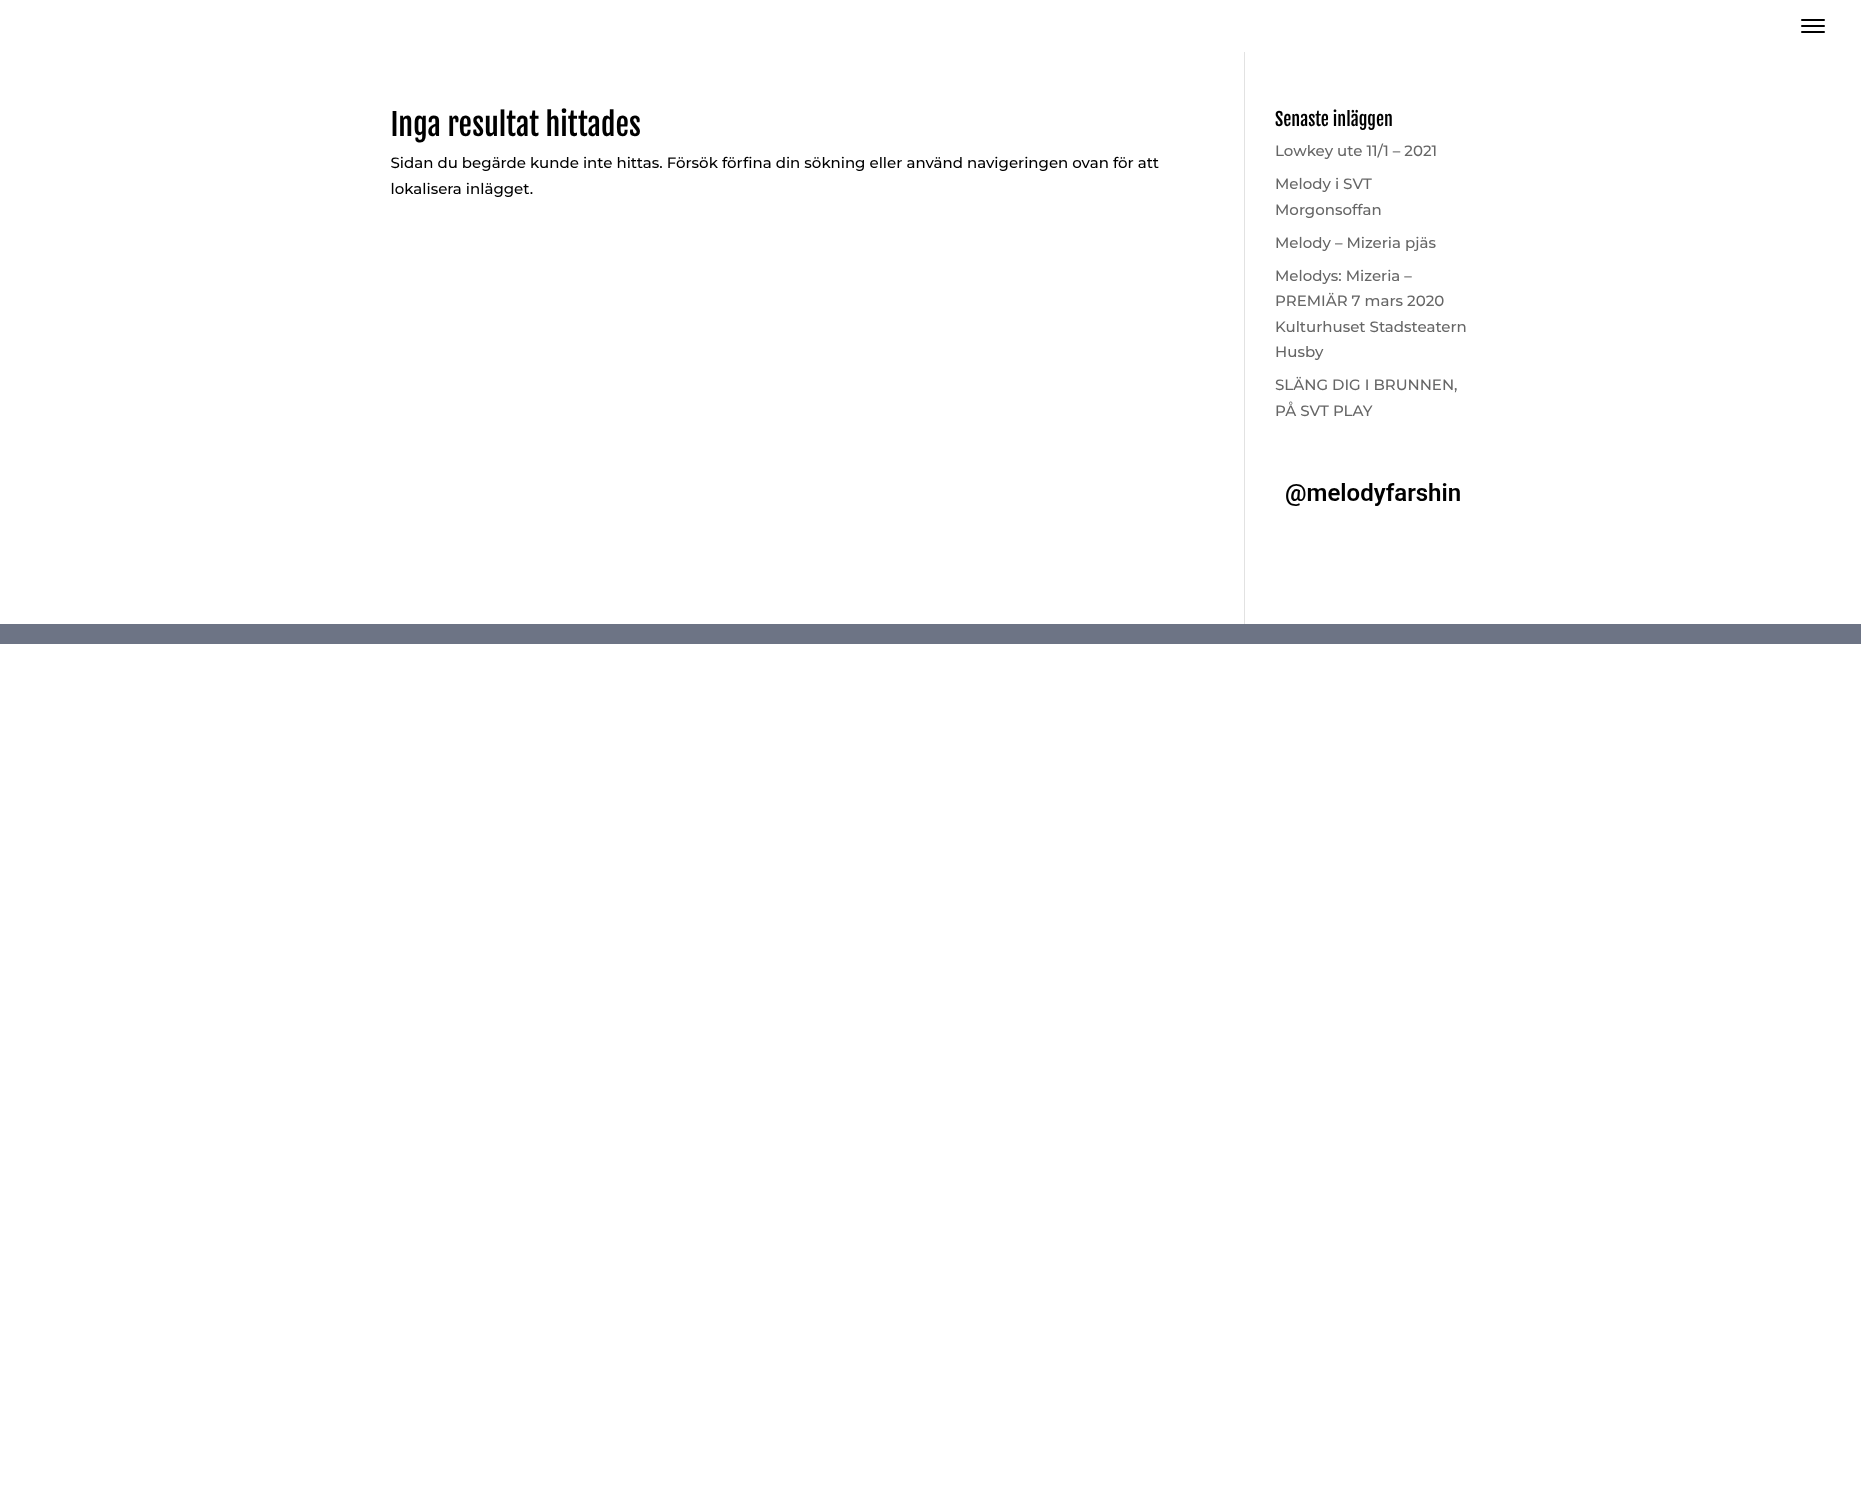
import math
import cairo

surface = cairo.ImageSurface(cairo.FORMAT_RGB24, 1861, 1503)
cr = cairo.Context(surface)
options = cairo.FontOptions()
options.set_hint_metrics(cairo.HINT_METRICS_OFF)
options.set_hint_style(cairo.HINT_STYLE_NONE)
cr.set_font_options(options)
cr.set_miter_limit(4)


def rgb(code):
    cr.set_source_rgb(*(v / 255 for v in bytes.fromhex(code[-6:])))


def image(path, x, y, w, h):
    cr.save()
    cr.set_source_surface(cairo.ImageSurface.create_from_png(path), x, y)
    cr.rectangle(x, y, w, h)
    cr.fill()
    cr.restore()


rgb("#ffffff")
cr.paint()
image("img/1.png", 0, 19, 1861, 625)
surface.write_to_png("page.png")
